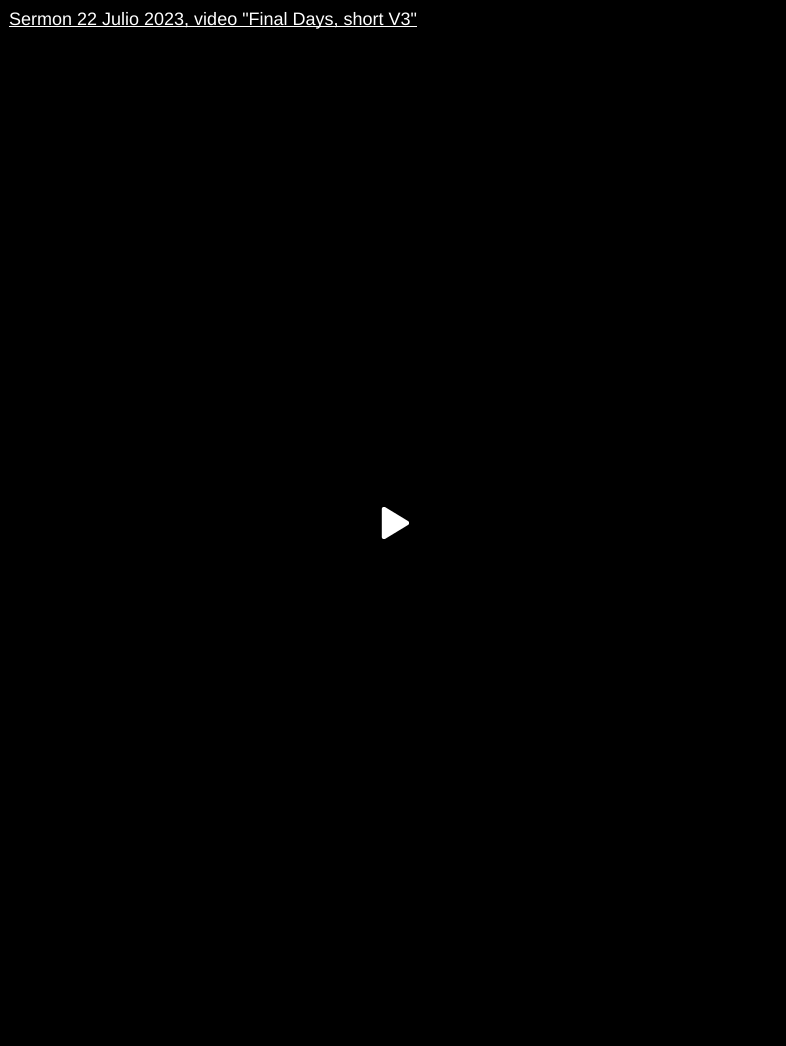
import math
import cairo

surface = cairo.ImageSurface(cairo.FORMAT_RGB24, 786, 1046)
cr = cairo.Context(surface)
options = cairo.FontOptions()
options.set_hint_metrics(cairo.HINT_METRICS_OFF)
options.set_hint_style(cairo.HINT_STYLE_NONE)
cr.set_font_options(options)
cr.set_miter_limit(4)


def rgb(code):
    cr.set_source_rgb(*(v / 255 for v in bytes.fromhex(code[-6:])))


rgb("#000000")
cr.paint()
rgb("#ffffff")
cr.rectangle(9, 26, 408, 1)
cr.fill()
cr.new_path()
cr.move_to(407, 523)
cr.line_to(384, 509)
cr.line_to(384, 537)
cr.close_path()
cr.fill()
cr.save()
cr.rectangle(377, 507, 32, 32)
cr.clip()
cr.new_path()
cr.move_to(407, 523)
cr.line_to(384, 509)
cr.line_to(384, 537)
cr.close_path()
cr.set_line_width(4.4)
cr.set_line_join(cairo.LINE_JOIN_ROUND)
cr.stroke()
cr.restore()
cr.select_font_face("Liberation Sans")
cr.set_font_size(18)
cr.move_to(9, 25)
cr.show_text("Sermon 22 Julio 2023, video \"Final Days, short V3\"")
surface.write_to_png("page.png")
